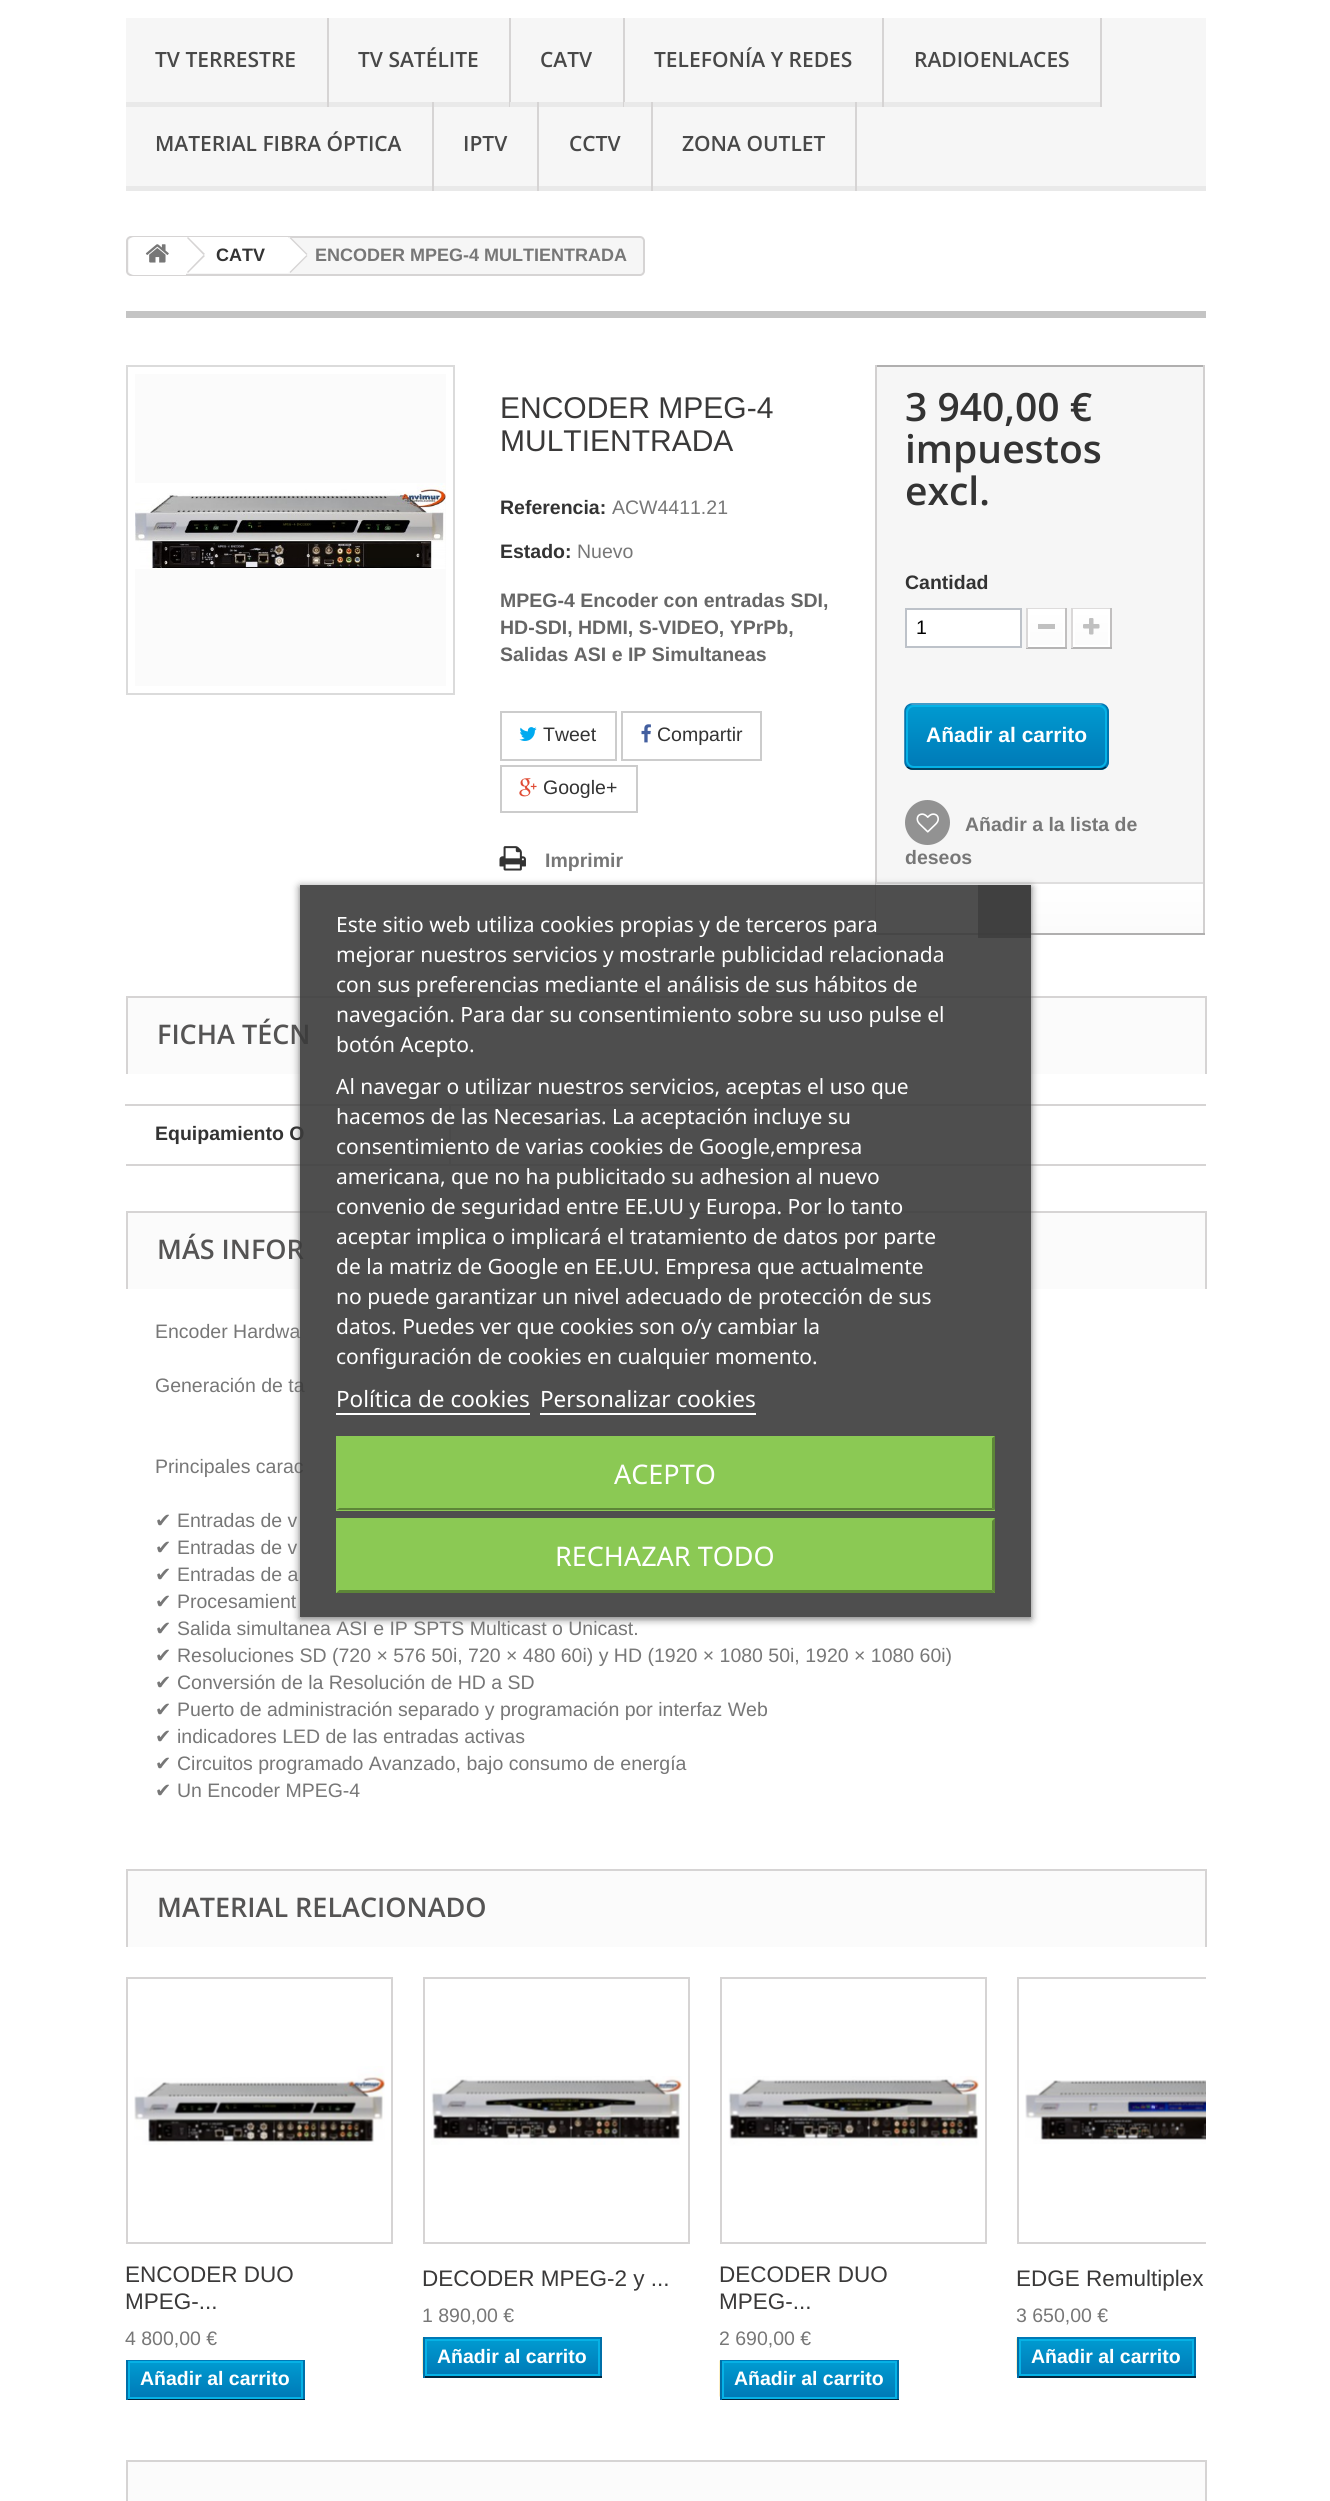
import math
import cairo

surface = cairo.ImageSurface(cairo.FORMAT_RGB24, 1330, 2501)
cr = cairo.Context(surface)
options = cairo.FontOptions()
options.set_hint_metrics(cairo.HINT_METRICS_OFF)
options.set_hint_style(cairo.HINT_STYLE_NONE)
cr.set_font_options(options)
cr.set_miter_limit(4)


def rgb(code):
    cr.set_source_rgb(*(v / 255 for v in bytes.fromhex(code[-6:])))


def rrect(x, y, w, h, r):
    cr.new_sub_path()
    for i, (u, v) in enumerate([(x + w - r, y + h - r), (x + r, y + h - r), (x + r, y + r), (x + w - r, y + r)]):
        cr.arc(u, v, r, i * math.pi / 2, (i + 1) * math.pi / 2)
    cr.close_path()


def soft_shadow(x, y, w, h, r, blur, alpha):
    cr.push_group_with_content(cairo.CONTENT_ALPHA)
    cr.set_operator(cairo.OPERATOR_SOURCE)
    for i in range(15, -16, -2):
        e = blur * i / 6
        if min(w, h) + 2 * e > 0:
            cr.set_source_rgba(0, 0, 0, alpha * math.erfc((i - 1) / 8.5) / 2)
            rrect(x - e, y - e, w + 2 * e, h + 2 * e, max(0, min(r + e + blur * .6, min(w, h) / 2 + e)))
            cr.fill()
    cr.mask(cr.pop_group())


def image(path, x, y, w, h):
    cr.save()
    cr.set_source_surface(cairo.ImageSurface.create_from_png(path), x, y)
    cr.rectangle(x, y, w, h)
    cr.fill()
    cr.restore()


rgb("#ffffff")
cr.paint()
for x, y, w, h, color in [
    (126, 18, 1080, 168, "#f6f6f6"),
    (126, 186, 1080, 5, "#e9e9e9"),
    (327, 18, 2, 89, "#d6d4d4"),
    (126, 102, 201, 5, "#e9e9e9"),
    (509, 18, 2, 89, "#d6d4d4"),
    (329, 102, 180, 5, "#e9e9e9"),
    (623, 18, 2, 89, "#d6d4d4"),
    (510, 102, 113, 5, "#e9e9e9"),
    (882, 18, 2, 89, "#d6d4d4"),
    (624, 102, 258, 5, "#e9e9e9"),
    (1100, 18, 2, 89, "#d6d4d4"),
    (884, 102, 216, 5, "#e9e9e9"),
    (432, 102, 2, 89, "#d6d4d4"),
    (537, 102, 2, 89, "#d6d4d4"),
    (651, 102, 2, 89, "#d6d4d4"),
    (855, 102, 2, 89, "#d6d4d4"),
]:
    rgb(color)
    cr.rectangle(x, y, w, h)
    cr.fill()
rgb("#f6f6f6")
rrect(127, 237, 517, 38, 4)
cr.fill_preserve()
rgb("#d6d4d4")
cr.stroke()
rgb("#ffffff")
cr.new_path()
cr.move_to(134, 237)
cr.line_to(186, 237)
cr.line_to(186, 275)
cr.line_to(134, 275)
cr.curve_to(131, 275, 129, 273, 129, 270)
cr.line_to(129, 242)
cr.curve_to(129, 239, 131, 237, 134, 237)
cr.close_path()
cr.fill()
image("img/1.png", 145, 244, 24, 19)
cr.rectangle(186, 237, 102, 36)
cr.fill()
rgb("#d6d4d4")
cr.new_path()
cr.move_to(188, 237)
cr.line_to(205, 254)
cr.line_to(203.5, 255)
cr.line_to(187, 238)
cr.close_path()
cr.move_to(203.5, 255)
cr.line_to(205, 256)
cr.line_to(188, 273)
cr.line_to(187, 272)
cr.close_path()
cr.fill()
rgb("#ffffff")
cr.new_path()
cr.move_to(291.5, 238)
cr.line_to(306.5, 253)
cr.curve_to(307.5, 254, 307.5, 256, 306.5, 257)
cr.line_to(291.5, 272)
cr.curve_to(290, 273, 288.5, 273, 287, 272)
cr.line_to(272.5, 257)
cr.curve_to(271, 256, 271, 254, 272.5, 253)
cr.line_to(287, 238)
cr.curve_to(288.5, 237, 290, 237, 291.5, 238)
cr.close_path()
cr.fill()
rgb("#d6d4d4")
cr.new_path()
cr.move_to(290.5, 237)
cr.line_to(307.5, 254)
cr.line_to(306.5, 255)
cr.line_to(289.5, 238)
cr.close_path()
cr.move_to(306.5, 255)
cr.line_to(307.5, 256)
cr.line_to(290.5, 273)
cr.line_to(289.5, 272)
cr.close_path()
cr.fill()
rgb("#c4c4c4")
cr.rectangle(126, 311, 1080, 7)
cr.fill()
cr.rectangle(127, 366, 327, 328)
rgb("#dbdbdb")
cr.stroke()
rgb("#fbfbfb")
cr.rectangle(135, 374, 311, 312)
cr.fill()
image("img/2.png", 135, 483, 311, 86)
cr.rectangle(501, 712, 115, 48)
rgb("#cccccc")
cr.stroke()
image("img/3.png", 519, 727, 18, 14)
cr.rectangle(622, 712, 139, 48)
cr.stroke()
image("img/4.png", 641, 724, 10, 19)
cr.rectangle(501, 766, 136, 46)
cr.stroke()
image("img/5.png", 519, 778, 18, 19)
image("img/6.png", 499, 846, 27, 25)
for x, y, w, h, color in [
    (877, 367, 326, 515, "#f6f6f6"),
    (875, 365, 330, 2, "#b0afaf"),
    (1203, 365, 2, 570, "#d2d0d0"),
    (875, 933, 330, 2, "#b0afaf"),
    (875, 365, 2, 570, "#d2d0d0"),
]:
    rgb(color)
    cr.rectangle(x, y, w, h)
    cr.fill()
rgb("#ffffff")
cr.rectangle(906, 609, 115, 38)
cr.fill_preserve()
rgb("#bdc2c9")
cr.stroke()
for x, y, w, h, color in [
    (1026, 608, 41, 1, "#dedcdc"),
    (1065, 608, 2, 40, "#c1bfbf"),
    (1026, 647, 41, 2, "#b5b4b4"),
    (1026, 608, 2, 40, "#dad8d8"),
]:
    rgb(color)
    cr.rectangle(x, y, w, h)
    cr.fill()
gradient = cairo.LinearGradient(1046, 611, 1046, 645)
gradient.add_color_stop_rgba(0, 1, 1, 1, 1)
gradient.add_color_stop_rgba(1, 0.984, 0.984, 0.984, 1)
cr.set_source(gradient)
cr.rectangle(1030, 611, 33, 34)
cr.fill()
cr.rectangle(1029, 610, 35, 36)
rgb("#ffffff")
cr.stroke()
for x, y, w, h, color in [
    (1038, 624, 17, 5, "#c0c0c0"),
    (1071, 608, 41, 1, "#dedcdc"),
    (1110, 608, 2, 40, "#c1bfbf"),
    (1071, 647, 41, 2, "#b5b4b4"),
    (1071, 608, 2, 40, "#dad8d8"),
]:
    rgb(color)
    cr.rectangle(x, y, w, h)
    cr.fill()
gradient = cairo.LinearGradient(1091, 611, 1091, 645)
gradient.add_color_stop_rgba(0, 1, 1, 1, 1)
gradient.add_color_stop_rgba(1, 0.984, 0.984, 0.984, 1)
cr.set_source(gradient)
cr.rectangle(1075, 611, 33, 34)
cr.fill()
cr.rectangle(1074, 610, 35, 36)
rgb("#ffffff")
cr.stroke()
image("img/7.png", 1083, 618, 17, 17)
cr.save()
rrect(905, 704, 204, 66, 8)
cr.clip()
gradient = cairo.LinearGradient(1007, 705, 1007, 768)
gradient.add_color_stop_rgba(0, 0, 0.604, 0.816, 1)
gradient.add_color_stop_rgba(1, 0, 0.478, 0.718, 1)
cr.set_source(gradient)
cr.rectangle(905, 705, 204, 63)
cr.fill()
gradient = cairo.LinearGradient(1007, 768, 1007, 831)
gradient.add_color_stop_rgba(0, 0, 0.604, 0.816, 1)
gradient.add_color_stop_rgba(1, 0, 0.478, 0.718, 1)
cr.set_source(gradient)
cr.rectangle(905, 768, 204, 2)
cr.fill()
cr.restore()
cr.new_path()
cr.move_to(907, 706)
cr.curve_to(908.5, 705, 910, 704, 912, 704)
cr.line_to(1101, 704)
cr.curve_to(1103, 704, 1104.5, 705, 1106, 706)
rgb("#0079b6")
cr.set_line_width(1.5)
cr.stroke()
cr.new_path()
cr.move_to(1106, 706)
cr.curve_to(1107, 707.5, 1108, 709, 1108, 711)
cr.line_to(1108, 762)
cr.curve_to(1108, 764, 1107, 765.5, 1106, 767)
rgb("#006fa8")
cr.stroke()
cr.new_path()
cr.move_to(1106, 767)
cr.curve_to(1104.5, 768, 1103, 769, 1101, 769)
cr.line_to(912, 769)
cr.curve_to(910, 769, 908.5, 768, 907, 767)
rgb("#012740")
cr.stroke()
cr.new_path()
cr.move_to(907, 767)
cr.curve_to(906, 765.5, 905, 764, 905, 762)
cr.line_to(905, 711)
cr.curve_to(905, 709, 906, 707.5, 907, 706)
rgb("#006fa8")
cr.stroke()
rrect(907, 706, 199, 61, 7)
rgb("#06b2e6")
cr.set_line_width(2)
cr.stroke()
rgb("#929292")
cr.arc(927.5, 822.5, 22.5, 0, 2 * math.pi)
cr.fill()
image("img/8.png", 916, 813, 23, 20)
gradient = cairo.LinearGradient(1040, 884, 1040, 933)
gradient.add_color_stop_rgba(0, 1, 1, 1, 1)
gradient.add_color_stop_rgba(1, 0.984, 0.984, 0.984, 1)
cr.set_source(gradient)
cr.rectangle(876, 884, 327, 49)
cr.fill()
for x, y, w, h, color in [
    (876, 882, 327, 2, "#dfdede"),
    (128, 998, 1077, 76, "#fbfbfb"),
    (126, 996, 1080, 2, "#d6d4d4"),
    (1205, 996, 2, 78, "#d6d4d4"),
    (126, 996, 2, 78, "#d6d4d4"),
    (126, 1164, 1080, 2, "#d6d4d4"),
    (125, 1104, 1081, 2, "#d6d4d4"),
    (449, 1104, 2, 62, "#d6d4d4"),
    (128, 1213, 1077, 76, "#fbfbfb"),
    (126, 1211, 1080, 2, "#d6d4d4"),
    (1205, 1211, 2, 78, "#d6d4d4"),
    (126, 1211, 2, 78, "#d6d4d4"),
    (128, 1871, 1077, 76, "#fbfbfb"),
    (126, 1869, 1080, 2, "#d6d4d4"),
    (1205, 1869, 2, 78, "#d6d4d4"),
    (126, 1869, 2, 78, "#d6d4d4"),
]:
    rgb(color)
    cr.rectangle(x, y, w, h)
    cr.fill()
cr.rectangle(127, 1978, 265, 265)
cr.stroke()
image("img/9.png", 134, 2066, 251, 79)
for x, y, w, h, color in [
    (126, 2360, 179, 1, "#0079b6"),
    (303, 2360, 2, 40, "#006fa8"),
    (126, 2399, 179, 1, "#012740"),
    (126, 2360, 2, 40, "#006fa8"),
]:
    rgb(color)
    cr.rectangle(x, y, w, h)
    cr.fill()
gradient = cairo.LinearGradient(215, 2363, 215, 2397)
gradient.add_color_stop_rgba(0, 0, 0.604, 0.816, 1)
gradient.add_color_stop_rgba(1, 0, 0.478, 0.718, 1)
cr.set_source(gradient)
cr.rectangle(130, 2363, 171, 34)
cr.fill()
cr.rectangle(129, 2362, 173, 36)
rgb("#06b2e6")
cr.stroke()
cr.rectangle(424, 1978, 265, 265)
rgb("#d6d4d4")
cr.stroke()
image("img/10.png", 431, 2076, 251, 69)
image("img/11.png", 422, 2337, 1, 38)
for x, y, w, h, color in [
    (423, 2337, 179, 2, "#0079b6"),
    (600, 2337, 2, 41, "#006fa8"),
    (423, 2376, 179, 2, "#012740"),
    (423, 2337, 2, 41, "#006fa8"),
]:
    rgb(color)
    cr.rectangle(x, y, w, h)
    cr.fill()
gradient = cairo.LinearGradient(512, 2340, 512, 2375)
gradient.add_color_stop_rgba(0, 0, 0.604, 0.816, 1)
gradient.add_color_stop_rgba(1, 0, 0.478, 0.718, 1)
cr.set_source(gradient)
cr.rectangle(427, 2341, 171, 33)
cr.fill()
cr.rectangle(426, 2340, 173, 35)
rgb("#06b2e6")
cr.stroke()
cr.rectangle(721, 1978, 265, 265)
rgb("#d6d4d4")
cr.stroke()
image("img/12.png", 728, 2076, 251, 70)
image("img/13.png", 719, 2360, 1, 37)
for x, y, w, h, color in [
    (720, 2360, 179, 1, "#0079b6"),
    (897, 2360, 2, 40, "#006fa8"),
    (720, 2399, 179, 1, "#012740"),
    (720, 2360, 2, 40, "#006fa8"),
]:
    rgb(color)
    cr.rectangle(x, y, w, h)
    cr.fill()
gradient = cairo.LinearGradient(809, 2363, 809, 2397)
gradient.add_color_stop_rgba(0, 0, 0.604, 0.816, 1)
gradient.add_color_stop_rgba(1, 0, 0.478, 0.718, 1)
cr.set_source(gradient)
cr.rectangle(724, 2363, 171, 34)
cr.fill()
cr.rectangle(723, 2362, 173, 36)
rgb("#06b2e6")
cr.stroke()
cr.save()
cr.rectangle(126, 1977, 1080, 423)
cr.clip()
cr.rectangle(1018, 1978, 265, 265)
rgb("#d6d4d4")
cr.stroke()
cr.restore()
image("img/14.png", 1025, 2080, 181, 64)
image("img/11.png", 1016, 2337, 1, 38)
for x, y, w, h, color in [
    (1017, 2337, 179, 2, "#0079b6"),
    (1194, 2337, 2, 41, "#006fa8"),
    (1017, 2376, 179, 2, "#012740"),
    (1017, 2337, 2, 41, "#006fa8"),
]:
    rgb(color)
    cr.rectangle(x, y, w, h)
    cr.fill()
gradient = cairo.LinearGradient(1106, 2340, 1106, 2375)
gradient.add_color_stop_rgba(0, 0, 0.604, 0.816, 1)
gradient.add_color_stop_rgba(1, 0, 0.478, 0.718, 1)
cr.set_source(gradient)
cr.rectangle(1021, 2341, 171, 33)
cr.fill()
cr.rectangle(1020, 2340, 173, 35)
rgb("#06b2e6")
cr.stroke()
for x, y, w, h, color in [
    (128, 2462, 1077, 39, "#fbfbfb"),
    (126, 2460, 1080, 2, "#d6d4d4"),
    (1205, 2460, 2, 41, "#d6d4d4"),
    (126, 2460, 2, 41, "#d6d4d4"),
]:
    rgb(color)
    cr.rectangle(x, y, w, h)
    cr.fill()
cr.save()
cr.set_fill_rule(cairo.FILL_RULE_EVEN_ODD)
cr.new_path()
cr.move_to(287, 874)
cr.line_to(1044, 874)
cr.line_to(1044, 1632)
cr.line_to(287, 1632)
cr.close_path()
cr.move_to(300, 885)
cr.line_to(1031, 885)
cr.line_to(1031, 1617)
cr.line_to(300, 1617)
cr.close_path()
cr.clip()
rgb("#707070")
soft_shadow(300, 887, 731, 732, 0, 4, 1)
cr.restore()
cr.select_font_face("Open Sans SemiBold")
cr.set_font_size(21)
rgb("#484848")
for x, y, s in [
    (155, 67, "TV TERRESTRE"),
    (358, 67, "TV SATÉLITE"),
    (540, 67, "CATV"),
    (654, 67, "TELEFONÍA Y REDES"),
    (914, 67, "RADIOENLACES"),
    (155, 151, "MATERIAL FIBRA ÓPTICA"),
    (463, 151, "IPTV"),
    (569, 151, "CCTV"),
    (682, 151, "ZONA OUTLET"),
]:
    cr.move_to(x, y)
    cr.show_text(s)
cr.select_font_face("Liberation Sans", cairo.FONT_SLANT_NORMAL, cairo.FONT_WEIGHT_BOLD)
cr.set_font_size(18)
rgb("#333333")
cr.move_to(216, 261)
cr.show_text("CATV")
rgb("#777777")
cr.move_to(315, 261)
cr.show_text("ENCODER MPEG-4 MULTIENTRADA")
cr.select_font_face("Liberation Sans")
cr.set_font_size(30)
rgb("#3a3939")
cr.move_to(500, 418)
cr.show_text("ENCODER MPEG-4")
cr.move_to(500, 451)
cr.show_text("MULTIENTRADA")
cr.select_font_face("Liberation Sans", cairo.FONT_SLANT_NORMAL, cairo.FONT_WEIGHT_BOLD)
cr.set_font_size(19.5)
rgb("#333333")
cr.move_to(500, 514)
cr.show_text("Referencia:")
cr.select_font_face("Liberation Sans")
rgb("#777777")
cr.move_to(612, 514)
cr.show_text("ACW4411.21")
cr.select_font_face("Liberation Sans", cairo.FONT_SLANT_NORMAL, cairo.FONT_WEIGHT_BOLD)
rgb("#333333")
cr.move_to(500, 558)
cr.show_text("Estado:")
cr.select_font_face("Liberation Sans")
rgb("#777777")
cr.move_to(577, 558)
cr.show_text("Nuevo")
cr.select_font_face("Liberation Sans", cairo.FONT_SLANT_NORMAL, cairo.FONT_WEIGHT_BOLD)
rgb("#666666")
for x, y, s in [
    (500, 607, "MPEG-4 Encoder con entradas SDI,"),
    (500, 634, "HD-SDI, HDMI, S-VIDEO, YPrPb,"),
    (500, 661, "Salidas ASI e IP Simultaneas"),
]:
    cr.move_to(x, y)
    cr.show_text(s)
cr.select_font_face("Liberation Sans")
rgb("#333333")
for x, y, s in [
    (543, 741, "Tweet"),
    (657, 741, "Compartir"),
    (543, 794, "Google+"),
]:
    cr.move_to(x, y)
    cr.show_text(s)
cr.select_font_face("Liberation Sans", cairo.FONT_SLANT_NORMAL, cairo.FONT_WEIGHT_BOLD)
rgb("#777777")
cr.move_to(545, 867)
cr.show_text("Imprimir")
cr.select_font_face("Open Sans SemiBold")
cr.set_font_size(39)
rgb("#333333")
for x, y, s in [
    (905, 421, "3 940,00 €"),
    (905, 463, "impuestos"),
    (905, 505, "excl."),
]:
    cr.move_to(x, y)
    cr.show_text(s)
cr.select_font_face("Liberation Sans", cairo.FONT_SLANT_NORMAL, cairo.FONT_WEIGHT_BOLD)
cr.set_font_size(19.5)
cr.move_to(905, 589)
cr.show_text("Cantidad")
cr.select_font_face("Liberation Sans")
rgb("#000000")
cr.move_to(916, 634)
cr.show_text("1")
cr.select_font_face("Liberation Sans", cairo.FONT_SLANT_NORMAL, cairo.FONT_WEIGHT_BOLD)
cr.set_font_size(21)
rgb("#ffffff")
cr.move_to(926, 742)
cr.show_text("Añadir al carrito")
cr.set_font_size(19.5)
rgb("#777777")
cr.move_to(965, 831)
cr.show_text("Añadir a la lista de")
cr.move_to(905, 864)
cr.show_text("deseos")
cr.select_font_face("Open Sans SemiBold")
cr.set_font_size(27)
rgb("#555454")
cr.move_to(157, 1044)
cr.show_text("FICHA TÉCN")
cr.select_font_face("Liberation Sans", cairo.FONT_SLANT_NORMAL, cairo.FONT_WEIGHT_BOLD)
cr.set_font_size(19.5)
rgb("#333333")
cr.move_to(155, 1140)
cr.show_text("Equipamiento O")
cr.select_font_face("Open Sans SemiBold")
cr.set_font_size(27)
rgb("#555454")
cr.move_to(157, 1259)
cr.show_text("MÁS INFOR")
cr.select_font_face("Liberation Sans")
cr.set_font_size(19.5)
rgb("#777777")
for x, y, s in [
    (155, 1338, "Encoder Hardwa"),
    (155, 1392, "Generación de ta"),
    (155, 1473, "Principales carac"),
]:
    cr.move_to(x, y)
    cr.show_text(s)
cr.select_font_face("DejaVu Sans")
cr.move_to(155, 1527)
cr.show_text("✔")
cr.select_font_face("Liberation Sans")
cr.move_to(177, 1527)
cr.show_text("Entradas de v")
cr.select_font_face("DejaVu Sans")
cr.move_to(155, 1554)
cr.show_text("✔")
cr.select_font_face("Liberation Sans")
cr.move_to(177, 1554)
cr.show_text("Entradas de v")
cr.select_font_face("DejaVu Sans")
cr.move_to(155, 1581)
cr.show_text("✔")
cr.select_font_face("Liberation Sans")
cr.move_to(177, 1581)
cr.show_text("Entradas de a")
cr.select_font_face("DejaVu Sans")
cr.move_to(155, 1608)
cr.show_text("✔")
cr.select_font_face("Liberation Sans")
cr.move_to(177, 1608)
cr.show_text("Procesamient")
cr.select_font_face("DejaVu Sans")
cr.move_to(155, 1635)
cr.show_text("✔")
cr.select_font_face("Liberation Sans")
cr.move_to(177, 1635)
cr.show_text("Salida simultanea ASI e IP SPTS Multicast o Unicast.")
cr.select_font_face("DejaVu Sans")
cr.move_to(155, 1662)
cr.show_text("✔")
cr.select_font_face("Liberation Sans")
cr.move_to(177, 1662)
cr.show_text("Resoluciones SD (720 × 576 50i, 720 × 480 60i) y HD (1920 × 1080 50i, 1920 × 1080 60i)")
cr.select_font_face("DejaVu Sans")
cr.move_to(155, 1689)
cr.show_text("✔")
cr.select_font_face("Liberation Sans")
cr.move_to(177, 1689)
cr.show_text("Conversión de la Resolución de HD a SD")
cr.select_font_face("DejaVu Sans")
cr.move_to(155, 1716)
cr.show_text("✔")
cr.select_font_face("Liberation Sans")
cr.move_to(177, 1716)
cr.show_text("Puerto de administración separado y programación por interfaz Web")
cr.select_font_face("DejaVu Sans")
cr.move_to(155, 1743)
cr.show_text("✔")
cr.select_font_face("Liberation Sans")
cr.move_to(177, 1743)
cr.show_text("indicadores LED de las entradas activas")
cr.select_font_face("DejaVu Sans")
cr.move_to(155, 1770)
cr.show_text("✔")
cr.select_font_face("Liberation Sans")
cr.move_to(177, 1770)
cr.show_text("Circuitos programado Avanzado, bajo consumo de energía")
cr.select_font_face("DejaVu Sans")
cr.move_to(155, 1797)
cr.show_text("✔")
cr.select_font_face("Liberation Sans")
cr.move_to(177, 1797)
cr.show_text("Un Encoder MPEG-4")
cr.select_font_face("Open Sans SemiBold")
cr.set_font_size(27)
rgb("#555454")
cr.move_to(157, 1917)
cr.show_text("MATERIAL RELACIONADO")
cr.select_font_face("Liberation Sans")
cr.set_font_size(22.5)
rgb("#3a3939")
cr.move_to(125, 2282)
cr.show_text("ENCODER DUO")
cr.move_to(125, 2309)
cr.show_text("MPEG-...")
cr.set_font_size(19.5)
rgb("#777777")
cr.move_to(125, 2345)
cr.show_text("4 800,00 €")
cr.select_font_face("Liberation Sans", cairo.FONT_SLANT_NORMAL, cairo.FONT_WEIGHT_BOLD)
rgb("#ffffff")
cr.move_to(140, 2385)
cr.show_text("Añadir al carrito")
cr.select_font_face("Liberation Sans")
cr.set_font_size(22.5)
rgb("#3a3939")
cr.move_to(422, 2286)
cr.show_text("DECODER MPEG-2 y ...")
cr.set_font_size(19.5)
rgb("#777777")
cr.move_to(422, 2322)
cr.show_text("1 890,00 €")
cr.select_font_face("Liberation Sans", cairo.FONT_SLANT_NORMAL, cairo.FONT_WEIGHT_BOLD)
rgb("#ffffff")
cr.move_to(437, 2363)
cr.show_text("Añadir al carrito")
cr.select_font_face("Liberation Sans")
cr.set_font_size(22.5)
rgb("#3a3939")
cr.move_to(719, 2282)
cr.show_text("DECODER DUO")
cr.move_to(719, 2309)
cr.show_text("MPEG-...")
cr.set_font_size(19.5)
rgb("#777777")
cr.move_to(719, 2345)
cr.show_text("2 690,00 €")
cr.select_font_face("Liberation Sans", cairo.FONT_SLANT_NORMAL, cairo.FONT_WEIGHT_BOLD)
rgb("#ffffff")
cr.move_to(734, 2385)
cr.show_text("Añadir al carrito")
cr.select_font_face("Liberation Sans")
cr.set_font_size(22.5)
rgb("#3a3939")
cr.move_to(1016, 2286)
cr.show_text("EDGE Remultiplex")
cr.set_font_size(19.5)
rgb("#777777")
cr.move_to(1016, 2322)
cr.show_text("3 650,00 €")
cr.select_font_face("Liberation Sans", cairo.FONT_SLANT_NORMAL, cairo.FONT_WEIGHT_BOLD)
rgb("#ffffff")
cr.move_to(1031, 2363)
cr.show_text("Añadir al carrito")
cr.set_source_rgba(0.231, 0.231, 0.231, 0.9)
cr.rectangle(300, 885, 731, 732)
cr.fill()
cr.select_font_face("Noto Sans")
cr.set_font_size(21)
rgb("#ffffff")
for x, y, s in [
    (336, 932, "Este sitio web utiliza cookies propias y de terceros para"),
    (336, 962, "mejorar nuestros servicios y mostrarle publicidad relacionada"),
    (336, 992, "con sus preferencias mediante el análisis de sus hábitos de"),
    (336, 1022, "navegación. Para dar su consentimiento sobre su uso pulse el"),
    (336, 1052, "botón Acepto."),
    (336, 1094, "Al navegar o utilizar nuestros servicios, aceptas el uso que"),
    (336, 1124, "hacemos de las Necesarias. La aceptación incluye su"),
    (336, 1154, "consentimiento de varias cookies de Google,empresa"),
    (336, 1184, "americana, que no ha publicitado su adhesion al nuevo"),
    (336, 1214, "convenio de seguridad entre EE.UU y Europa. Por lo tanto"),
    (336, 1244, "aceptar implica o implicará el tratamiento de datos por parte"),
    (336, 1274, "de la matriz de Google en EE.UU. Empresa que actualmente"),
    (336, 1304, "no puede garantizar un nivel adecuado de protección de sus"),
    (336, 1334, "datos. Puedes ver que cookies son o/y cambiar la"),
    (336, 1364, "configuración de cookies en cualquier momento."),
]:
    cr.move_to(x, y)
    cr.show_text(s)
cr.set_font_size(22.5)
cr.move_to(336, 1407)
cr.show_text("Política de cookies")
cr.rectangle(336, 1413, 194, 2)
cr.fill()
cr.move_to(540, 1407)
cr.show_text("Personalizar cookies")
cr.rectangle(540, 1413, 216, 2)
cr.fill()
rgb("#8bc954")
cr.rectangle(336, 1436, 659, 75)
cr.fill()
rgb("#5d8638")
cr.new_path()
cr.move_to(995, 1436)
cr.line_to(995, 1510)
cr.line_to(992, 1508)
cr.line_to(992, 1438)
cr.close_path()
cr.fill()
cr.new_path()
cr.move_to(995, 1510)
cr.line_to(336, 1510)
cr.line_to(339, 1508)
cr.line_to(992, 1508)
cr.close_path()
cr.fill()
rgb("#8bc954")
cr.new_path()
cr.move_to(336, 1510)
cr.line_to(336, 1436)
cr.line_to(339, 1438)
cr.line_to(339, 1508)
cr.close_path()
cr.fill()
cr.set_font_size(27)
rgb("#ffffff")
cr.move_to(614, 1484)
cr.show_text("ACEPTO")
rgb("#8bc954")
cr.rectangle(336, 1518, 659, 75)
cr.fill()
rgb("#5d8638")
cr.new_path()
cr.move_to(995, 1518)
cr.line_to(995, 1593)
cr.line_to(992, 1590)
cr.line_to(992, 1521)
cr.close_path()
cr.fill()
cr.new_path()
cr.move_to(995, 1593)
cr.line_to(336, 1593)
cr.line_to(339, 1590)
cr.line_to(992, 1590)
cr.close_path()
cr.fill()
rgb("#8bc954")
cr.new_path()
cr.move_to(336, 1593)
cr.line_to(336, 1518)
cr.line_to(339, 1521)
cr.line_to(339, 1590)
cr.close_path()
cr.fill()
rgb("#ffffff")
cr.move_to(555, 1566)
cr.show_text("RECHAZAR TODO")
cr.set_source_rgba(0.231, 0.231, 0.231, 0.7)
cr.rectangle(978, 885, 53, 53)
cr.fill()
surface.write_to_png("page.png")
